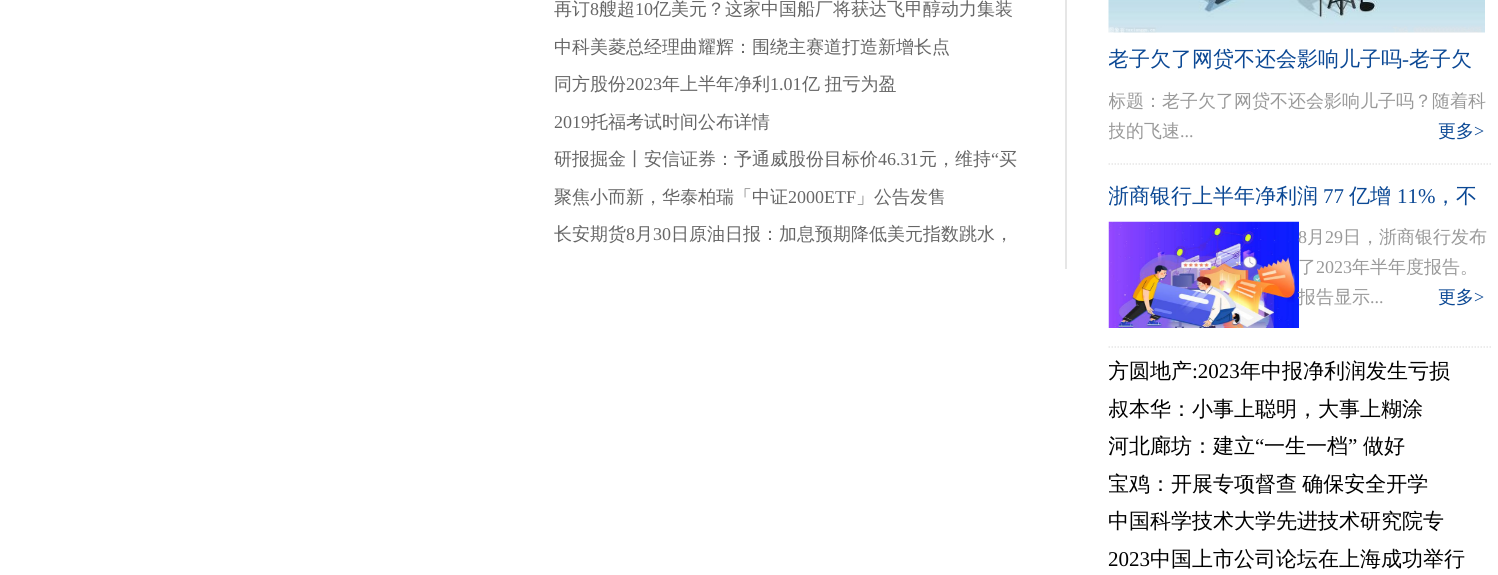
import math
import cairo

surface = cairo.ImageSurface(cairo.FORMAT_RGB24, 1498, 575)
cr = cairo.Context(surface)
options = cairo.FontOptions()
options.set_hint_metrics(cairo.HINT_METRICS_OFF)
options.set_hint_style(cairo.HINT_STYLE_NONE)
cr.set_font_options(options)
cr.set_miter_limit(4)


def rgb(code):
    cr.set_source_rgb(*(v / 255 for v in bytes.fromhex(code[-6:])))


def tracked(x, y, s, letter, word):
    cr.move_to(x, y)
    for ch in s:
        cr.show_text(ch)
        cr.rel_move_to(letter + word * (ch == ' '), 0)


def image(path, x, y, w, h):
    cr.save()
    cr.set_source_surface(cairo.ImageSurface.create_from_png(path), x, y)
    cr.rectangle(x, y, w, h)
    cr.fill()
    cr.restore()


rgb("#ffffff")
cr.paint()
rgb("#e6e6e6")
cr.rectangle(1065, 0, 2, 269)
cr.fill()
image("img/1.png", 1108, 0, 377, 33)
cr.new_path()
cr.move_to(1108.5, 164)
cr.line_to(1492.5, 164)
cr.set_line_width(1.5)
cr.set_dash([1.5, 1.5])
cr.stroke()
image("img/2.png", 1108, 221, 191, 107)
cr.new_path()
cr.move_to(1108.5, 347)
cr.line_to(1492.5, 347)
cr.stroke()
cr.select_font_face("WenQuanYi Zen Hei Medium")
cr.set_font_size(18)
rgb("#666666")
cr.move_to(554, 15)
cr.show_text("再订")
cr.select_font_face("Liberation Serif")
cr.move_to(590, 15)
cr.show_text("8")
cr.select_font_face("WenQuanYi Zen Hei Medium")
cr.move_to(599, 15)
cr.show_text("艘超")
cr.select_font_face("Liberation Serif")
cr.move_to(635, 15)
cr.show_text("10")
cr.select_font_face("WenQuanYi Zen Hei Medium")
for x, y, s in [
    (653, 15, "亿美元？这家中国船厂将获达飞甲醇动力集装"),
    (554, 53, "中科美菱总经理曲耀辉：围绕主赛道打造新增长点"),
    (554, 90, "同方股份"),
]:
    cr.move_to(x, y)
    cr.show_text(s)
cr.select_font_face("Liberation Serif")
cr.move_to(626, 90)
cr.show_text("2023")
cr.select_font_face("WenQuanYi Zen Hei Medium")
cr.move_to(662, 90)
cr.show_text("年上半年净利")
cr.select_font_face("Liberation Serif")
cr.move_to(770, 90)
cr.show_text("1.01")
cr.select_font_face("WenQuanYi Zen Hei Medium")
tracked(802, 90, "亿 扭亏为盈", 0, -1)
cr.select_font_face("Liberation Serif")
cr.move_to(554, 128)
cr.show_text("2019")
cr.select_font_face("WenQuanYi Zen Hei Medium")
cr.move_to(590, 128)
cr.show_text("托福考试时间公布详情")
cr.move_to(554, 165)
cr.show_text("研报掘金丨安信证券：予通威股份目标价")
cr.select_font_face("Liberation Serif")
cr.move_to(878, 165)
cr.show_text("46.31")
cr.select_font_face("WenQuanYi Zen Hei Medium")
cr.move_to(919, 165)
cr.show_text("元，维持")
cr.select_font_face("Liberation Serif")
cr.move_to(991, 165)
cr.show_text("“")
cr.select_font_face("WenQuanYi Zen Hei Medium")
cr.move_to(999, 165)
cr.show_text("买")
cr.move_to(554, 203)
cr.show_text("聚焦小而新，华泰柏瑞「中证")
cr.select_font_face("Liberation Serif")
cr.move_to(788, 203)
cr.show_text("2000ETF")
cr.select_font_face("WenQuanYi Zen Hei Medium")
cr.move_to(856, 203)
cr.show_text("」公告发售")
cr.move_to(554, 240)
cr.show_text("长安期货")
cr.select_font_face("Liberation Serif")
cr.move_to(626, 240)
cr.show_text("8")
cr.select_font_face("WenQuanYi Zen Hei Medium")
cr.move_to(635, 240)
cr.show_text("月")
cr.select_font_face("Liberation Serif")
cr.move_to(653, 240)
cr.show_text("30")
cr.select_font_face("WenQuanYi Zen Hei Medium")
cr.move_to(671, 240)
cr.show_text("日原油日报：加息预期降低美元指数跳水，")
cr.save()
cr.rectangle(1109, 33, 384, 53)
cr.clip()
cr.set_font_size(21)
rgb("#0b4894")
cr.move_to(1108, 66)
cr.show_text("老子欠了网贷不还会影响儿子吗")
cr.restore()
cr.select_font_face("Liberation Serif")
cr.set_font_size(21)
rgb("#0b4894")
cr.move_to(1402, 66)
cr.show_text("-")
cr.select_font_face("WenQuanYi Zen Hei Medium")
cr.move_to(1409, 66)
cr.show_text("老子欠")
cr.save()
cr.rectangle(1109, 86, 384, 60)
cr.clip()
cr.set_font_size(18)
rgb("#999999")
cr.move_to(1108, 107)
cr.show_text("标题：老子欠了网贷不还会影响儿子吗？随着科")
cr.move_to(1108, 137)
cr.show_text("技的飞速")
cr.restore()
cr.select_font_face("Liberation Serif")
cr.set_font_size(18)
rgb("#999999")
cr.move_to(1180, 137)
cr.show_text("...")
cr.select_font_face("WenQuanYi Zen Hei Medium")
rgb("#0b4894")
cr.move_to(1438, 137)
cr.show_text("更多")
cr.select_font_face("Liberation Serif")
cr.move_to(1474, 137)
cr.show_text(">")
cr.save()
cr.rectangle(1109, 170, 384, 52)
cr.clip()
cr.select_font_face("WenQuanYi Zen Hei Medium")
cr.set_font_size(21)
cr.move_to(1108, 203)
cr.show_text("浙商银行上半年净利润")
cr.restore()
cr.set_font_size(21)
cr.move_to(1323, 203)
cr.show_text("77")
cr.select_font_face("WenQuanYi Zen Hei Medium")
cr.move_to(1349, 203)
cr.show_text("亿增")
cr.select_font_face("Liberation Serif")
cr.move_to(1397, 203)
cr.show_text("11%")
cr.select_font_face("WenQuanYi Zen Hei Medium")
cr.move_to(1435, 203)
cr.show_text("，不")
cr.select_font_face("Liberation Serif")
cr.set_font_size(18)
rgb("#999999")
cr.move_to(1298, 243)
cr.show_text("8")
cr.select_font_face("WenQuanYi Zen Hei Medium")
cr.move_to(1307, 243)
cr.show_text("月")
cr.select_font_face("Liberation Serif")
cr.move_to(1325, 243)
cr.show_text("29")
cr.select_font_face("WenQuanYi Zen Hei Medium")
cr.move_to(1343, 243)
cr.show_text("日，浙商银行发布")
cr.move_to(1298, 273)
cr.show_text("了")
cr.select_font_face("Liberation Serif")
cr.move_to(1316, 273)
cr.show_text("2023")
cr.select_font_face("WenQuanYi Zen Hei Medium")
cr.move_to(1352, 273)
cr.show_text("年半年度报告。")
cr.move_to(1298, 303)
cr.show_text("报告显示")
cr.select_font_face("Liberation Serif")
cr.move_to(1370, 303)
cr.show_text("...")
cr.select_font_face("WenQuanYi Zen Hei Medium")
rgb("#0b4894")
cr.move_to(1438, 303)
cr.show_text("更多")
cr.select_font_face("Liberation Serif")
cr.move_to(1474, 303)
cr.show_text(">")
cr.save()
cr.rectangle(1109, 353, 384, 37)
cr.clip()
cr.select_font_face("WenQuanYi Zen Hei Medium")
cr.set_font_size(21)
rgb("#000000")
cr.move_to(1108, 378)
cr.show_text("方圆地产")
cr.restore()
cr.set_font_size(21)
rgb("#000000")
cr.move_to(1192, 378)
cr.show_text(":2023")
cr.select_font_face("WenQuanYi Zen Hei Medium")
cr.move_to(1240, 378)
cr.show_text("年中报净利润发生亏损")
cr.save()
cr.rectangle(1109, 390, 384, 38)
cr.clip()
cr.move_to(1108, 416)
cr.show_text("叔本华：小事上聪明，大事上糊涂")
cr.restore()
cr.save()
cr.rectangle(1109, 428, 384, 37)
cr.clip()
cr.move_to(1108, 453)
cr.show_text("河北廊坊：建立")
cr.restore()
cr.select_font_face("Liberation Serif")
cr.move_to(1255, 453)
cr.show_text("“")
cr.select_font_face("WenQuanYi Zen Hei Medium")
cr.move_to(1264, 453)
cr.show_text("一生一档")
cr.select_font_face("Liberation Serif")
cr.move_to(1348, 453)
cr.show_text("”")
cr.select_font_face("WenQuanYi Zen Hei Medium")
cr.move_to(1363, 453)
cr.show_text("做好")
cr.save()
cr.rectangle(1109, 465, 384, 38)
cr.clip()
tracked(1108, 491, "宝鸡：开展专项督查 确保安全开学", 0, -1)
cr.restore()
cr.save()
cr.rectangle(1109, 503, 384, 37)
cr.clip()
cr.move_to(1108, 528)
cr.show_text("中国科学技术大学先进技术研究院专")
cr.restore()
cr.select_font_face("Liberation Serif")
cr.move_to(1108, 566)
cr.show_text("2023")
cr.select_font_face("WenQuanYi Zen Hei Medium")
cr.move_to(1150, 566)
cr.show_text("中国上市公司论坛在上海成功举行")
surface.write_to_png("page.png")
